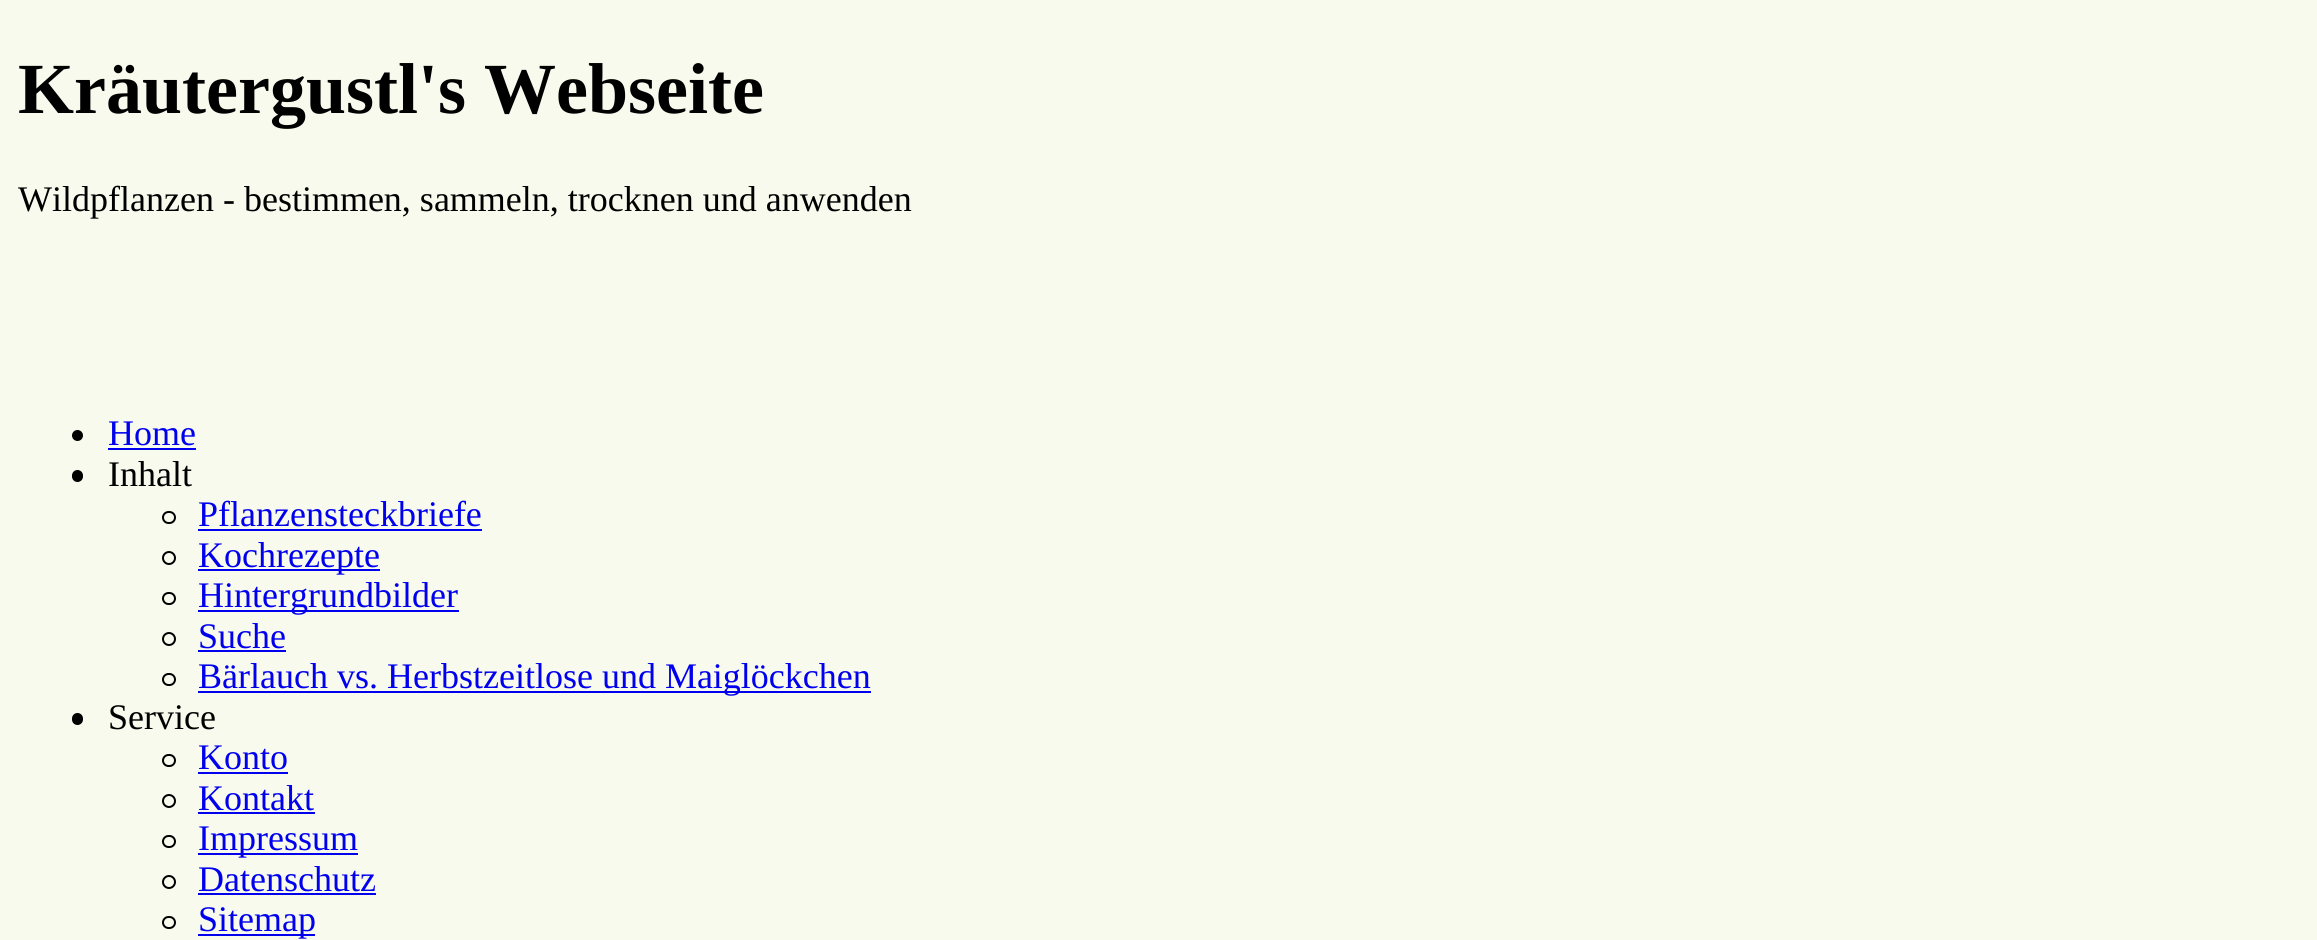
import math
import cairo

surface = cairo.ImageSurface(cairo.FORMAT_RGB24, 2317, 940)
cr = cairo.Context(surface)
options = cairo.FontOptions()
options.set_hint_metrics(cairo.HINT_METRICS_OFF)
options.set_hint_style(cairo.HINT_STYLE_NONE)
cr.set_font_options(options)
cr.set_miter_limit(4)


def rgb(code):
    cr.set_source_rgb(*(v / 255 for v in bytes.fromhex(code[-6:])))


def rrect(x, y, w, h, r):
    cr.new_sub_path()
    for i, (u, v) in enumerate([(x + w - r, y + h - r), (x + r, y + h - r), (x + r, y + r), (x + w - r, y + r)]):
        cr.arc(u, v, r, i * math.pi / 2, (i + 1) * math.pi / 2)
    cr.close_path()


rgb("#f8faed")
cr.paint()
rgb("#000000")
cr.arc(77.5, 435.5, 5.5, 0, 2 * math.pi)
cr.fill()
rgb("#0000ee")
cr.rectangle(108, 448, 88, 2)
cr.fill()
rgb("#000000")
rrect(72, 470, 11, 12, 5.5)
cr.fill()
rrect(163, 512, 12, 11, 5.5)
cr.stroke()
rgb("#0000ee")
cr.rectangle(198, 529, 284, 2)
cr.fill()
cr.arc(169, 558, 6, 0, 2 * math.pi)
rgb("#000000")
cr.stroke()
rgb("#0000ee")
cr.rectangle(198, 569, 182, 2)
cr.fill()
rrect(163, 593, 12, 11, 5.5)
rgb("#000000")
cr.stroke()
rgb("#0000ee")
cr.rectangle(198, 610, 261, 2)
cr.fill()
cr.arc(169, 639, 6, 0, 2 * math.pi)
rgb("#000000")
cr.stroke()
rgb("#0000ee")
cr.rectangle(198, 650, 88, 2)
cr.fill()
rrect(163, 674, 12, 11, 5.5)
rgb("#000000")
cr.stroke()
rgb("#0000ee")
cr.rectangle(198, 691, 673, 2)
cr.fill()
rgb("#000000")
rrect(72, 713, 11, 12, 5.5)
cr.fill()
rrect(163, 755, 12, 11, 5.5)
cr.stroke()
rgb("#0000ee")
cr.rectangle(198, 772, 90, 2)
cr.fill()
cr.arc(169, 801, 6, 0, 2 * math.pi)
rgb("#000000")
cr.stroke()
rgb("#0000ee")
cr.rectangle(198, 812, 117, 2)
cr.fill()
rrect(163, 836, 12, 11, 5.5)
rgb("#000000")
cr.stroke()
rgb("#0000ee")
cr.rectangle(198, 853, 160, 2)
cr.fill()
cr.arc(169, 882, 6, 0, 2 * math.pi)
rgb("#000000")
cr.stroke()
rgb("#0000ee")
cr.rectangle(198, 893, 178, 2)
cr.fill()
rrect(163, 917, 12, 11, 5.5)
rgb("#000000")
cr.stroke()
rgb("#0000ee")
cr.rectangle(198, 934, 117, 2)
cr.fill()
cr.select_font_face("Liberation Serif", cairo.FONT_SLANT_NORMAL, cairo.FONT_WEIGHT_BOLD)
cr.set_font_size(72)
rgb("#000000")
cr.move_to(18, 113)
cr.show_text("Kräutergustl's Webseite")
cr.select_font_face("Liberation Serif")
cr.set_font_size(36)
cr.move_to(18, 211)
cr.show_text("Wildpflanzen - bestimmen, sammeln, trocknen und anwenden")
rgb("#0000ee")
cr.move_to(108, 445)
cr.show_text("Home")
rgb("#000000")
cr.move_to(108, 486)
cr.show_text("Inhalt")
rgb("#0000ee")
for x, y, s in [
    (198, 526, "Pflanzensteckbriefe"),
    (198, 567, "Kochrezepte"),
    (198, 607, "Hintergrundbilder"),
    (198, 648, "Suche"),
    (198, 688, "Bärlauch vs. Herbstzeitlose und Maiglöckchen"),
]:
    cr.move_to(x, y)
    cr.show_text(s)
rgb("#000000")
cr.move_to(108, 729)
cr.show_text("Service")
rgb("#0000ee")
for x, y, s in [
    (198, 769, "Konto"),
    (198, 810, "Kontakt"),
    (198, 850, "Impressum"),
    (198, 891, "Datenschutz"),
    (198, 931, "Sitemap"),
]:
    cr.move_to(x, y)
    cr.show_text(s)
surface.write_to_png("page.png")
